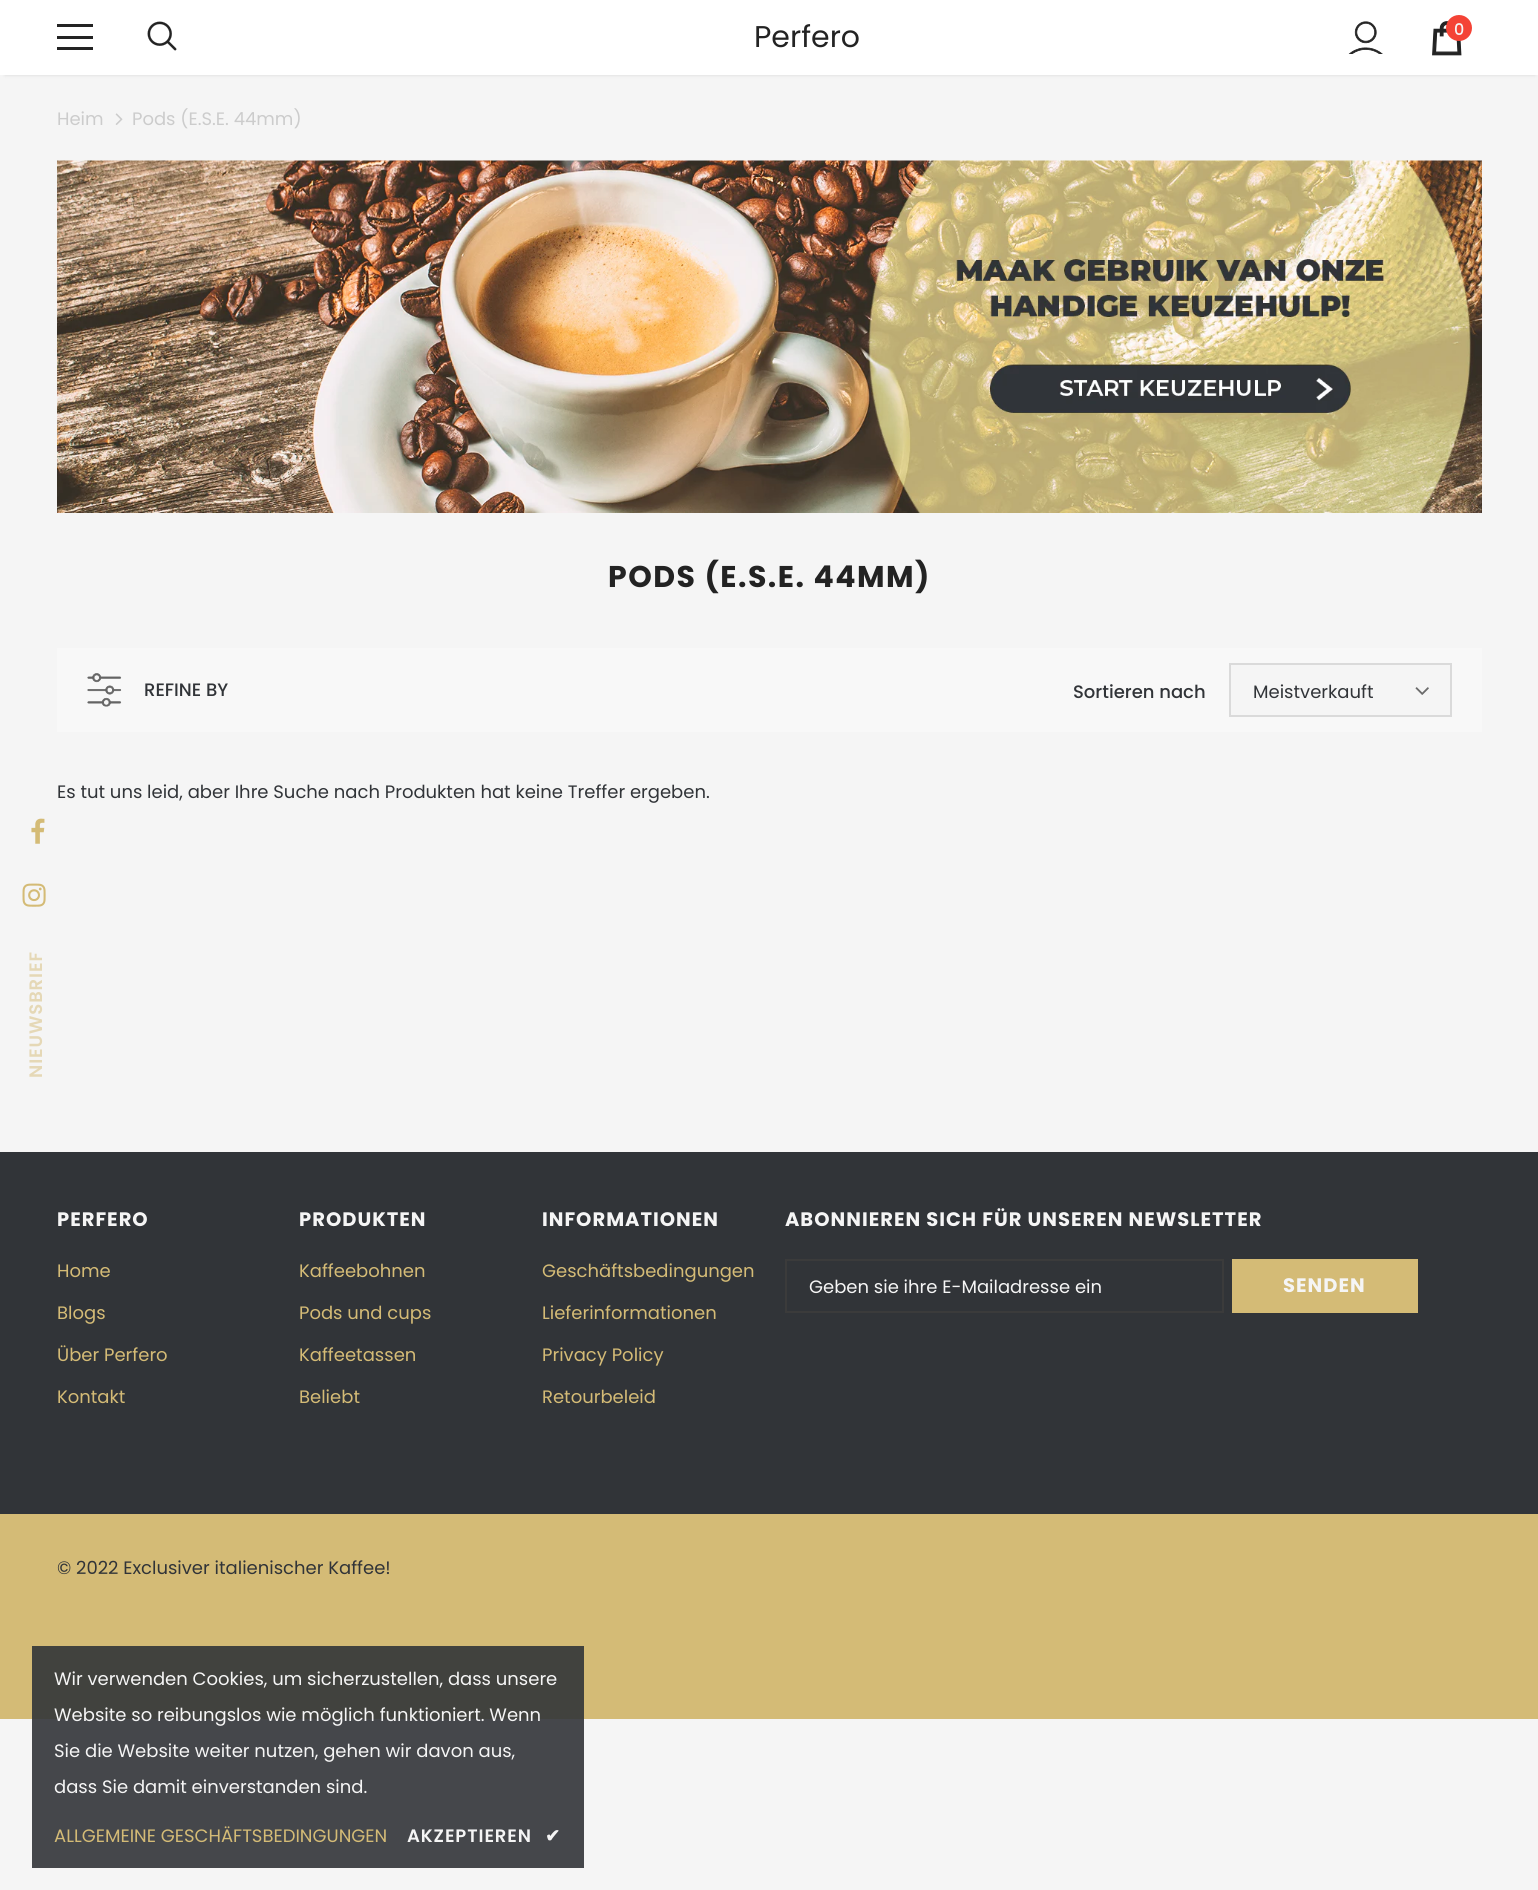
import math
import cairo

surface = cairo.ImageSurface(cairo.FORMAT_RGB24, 1538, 1890)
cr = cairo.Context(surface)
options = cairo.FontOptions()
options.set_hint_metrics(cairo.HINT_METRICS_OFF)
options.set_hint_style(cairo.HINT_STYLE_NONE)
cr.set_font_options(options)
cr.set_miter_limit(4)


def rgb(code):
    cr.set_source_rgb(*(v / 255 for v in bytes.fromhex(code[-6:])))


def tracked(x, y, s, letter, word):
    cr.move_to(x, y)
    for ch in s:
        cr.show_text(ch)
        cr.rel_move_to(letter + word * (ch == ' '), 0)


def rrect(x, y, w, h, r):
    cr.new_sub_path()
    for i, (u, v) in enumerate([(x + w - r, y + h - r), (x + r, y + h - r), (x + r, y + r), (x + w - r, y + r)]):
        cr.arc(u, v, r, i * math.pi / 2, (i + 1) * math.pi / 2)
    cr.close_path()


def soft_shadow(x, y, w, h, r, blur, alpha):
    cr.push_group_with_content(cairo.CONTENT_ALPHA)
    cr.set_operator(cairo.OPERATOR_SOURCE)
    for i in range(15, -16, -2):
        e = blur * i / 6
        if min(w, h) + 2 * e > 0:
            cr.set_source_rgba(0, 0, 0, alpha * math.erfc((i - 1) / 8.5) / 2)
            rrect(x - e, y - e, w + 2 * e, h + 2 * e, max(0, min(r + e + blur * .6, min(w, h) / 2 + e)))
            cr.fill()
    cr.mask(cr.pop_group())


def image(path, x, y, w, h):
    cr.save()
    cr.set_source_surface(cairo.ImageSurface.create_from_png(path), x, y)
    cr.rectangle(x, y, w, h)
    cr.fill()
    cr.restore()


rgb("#f5f5f5")
cr.paint()
rgb("#45474b")
cr.rectangle(32, 1719, 552, 149)
cr.fill()
rgb("#000000")
soft_shadow(5, 9, 1530, 66, 0, 2, 0.12)
for x, y, w, h, color in [
    (0, 0, 1538, 75, "#ffffff"),
    (57, 24, 36, 3, "#232323"),
    (57, 36, 36, 3, "#232323"),
    (57, 47, 36, 3, "#232323"),
]:
    rgb(color)
    cr.rectangle(x, y, w, h)
    cr.fill()
image("img/1.png", 147, 21, 30, 30)
image("img/2.png", 1348, 21, 35, 33)
image("img/3.png", 1432, 21, 30, 35)
rgb("#f44336")
cr.arc(1459, 28, 13, 0, 2 * math.pi)
cr.fill()
image("img/4.png", 31, 818, 14, 26)
image("img/5.png", 22, 883, 24, 24)
image("img/6.png", 115, 113, 8, 12)
image("img/7.png", 57, 160, 1425, 353)
rgb("#f8f8f8")
cr.rectangle(57, 648, 1425, 84)
cr.fill()
image("img/8.png", 87, 673, 35, 34)
rgb("#f5f5f5")
cr.rectangle(1230, 664, 221, 52)
cr.fill_preserve()
rgb("#dadada")
cr.stroke()
image("img/9.png", 1415, 687, 14, 8)
rgb("#313438")
cr.rectangle(0, 1152, 1538, 362)
cr.fill()
cr.rectangle(786, 1260, 437, 52)
rgb("#3b3b3b")
cr.stroke()
for x, y, w, h, color in [
    (1232, 1259, 186, 54, "#d4bb76"),
    (0, 1514, 1538, 205, "#d4bb76"),
    (32, 1646, 552, 73, "#41423e"),
]:
    rgb(color)
    cr.rectangle(x, y, w, h)
    cr.fill()
cr.select_font_face("Poppins")
cr.set_font_size(30)
rgb("#232323")
cr.move_to(754, 47)
cr.show_text("Perfero")
cr.select_font_face("Poppins Medium")
cr.set_font_size(16)
rgb("#f5f5f5")
cr.move_to(1454, 35)
cr.show_text("0")
cr.select_font_face("Poppins SemiBold")
cr.set_font_size(18)
rgb("#e5d8b6")
cr.save()
cr.translate(42, 1078)
cr.rotate(-90 * math.pi / 180)
tracked(0, 0, "NIEUWSBRIEF", 0.9, 0)
cr.restore()
cr.select_font_face("Poppins")
rgb("#cccccc")
cr.move_to(57, 125)
cr.show_text("Heim")
cr.move_to(132, 125)
cr.show_text("Pods (E.S.E. 44mm)")
cr.select_font_face("Poppins", cairo.FONT_SLANT_NORMAL, cairo.FONT_WEIGHT_BOLD)
cr.set_font_size(30)
rgb("#232323")
tracked(608, 587, "PODS (E.S.E. 44MM)", 1.5, 0)
cr.select_font_face("Poppins Medium")
cr.set_font_size(18)
rgb("#313438")
cr.move_to(144, 696)
cr.show_text("REFINE BY")
cr.move_to(1073, 698)
cr.show_text("Sortieren nach")
cr.select_font_face("Poppins")
cr.move_to(1253, 698)
cr.show_text("Meistverkauft")
cr.move_to(57, 798)
cr.show_text("Es tut uns leid, aber Ihre Suche nach Produkten hat keine Treffer ergeben.")
cr.select_font_face("Poppins", cairo.FONT_SLANT_NORMAL, cairo.FONT_WEIGHT_BOLD)
cr.set_font_size(19.5)
rgb("#f5f5f5")
tracked(57, 1226, "PERFERO", 1, 0)
cr.select_font_face("Poppins")
cr.set_font_size(18)
rgb("#d4bb76")
for x, y, s in [
    (57, 1277, "Home"),
    (57, 1319, "Blogs"),
    (57, 1361, "Über Perfero"),
    (57, 1403, "Kontakt"),
]:
    cr.move_to(x, y)
    cr.show_text(s)
cr.select_font_face("Poppins", cairo.FONT_SLANT_NORMAL, cairo.FONT_WEIGHT_BOLD)
cr.set_font_size(19.5)
rgb("#f5f5f5")
tracked(299, 1226, "PRODUKTEN", 1, 0)
cr.select_font_face("Poppins")
cr.set_font_size(18)
rgb("#d4bb76")
for x, y, s in [
    (299, 1277, "Kaffeebohnen"),
    (299, 1319, "Pods und cups"),
    (299, 1361, "Kaffeetassen"),
    (299, 1403, "Beliebt"),
]:
    cr.move_to(x, y)
    cr.show_text(s)
cr.select_font_face("Poppins", cairo.FONT_SLANT_NORMAL, cairo.FONT_WEIGHT_BOLD)
cr.set_font_size(19.5)
rgb("#f5f5f5")
tracked(542, 1226, "INFORMATIONEN", 1, 0)
cr.select_font_face("Poppins")
cr.set_font_size(18)
rgb("#d4bb76")
for x, y, s in [
    (542, 1277, "Geschäftsbedingungen"),
    (542, 1319, "Lieferinformationen"),
    (542, 1361, "Privacy Policy"),
    (542, 1403, "Retourbeleid"),
]:
    cr.move_to(x, y)
    cr.show_text(s)
cr.select_font_face("Poppins", cairo.FONT_SLANT_NORMAL, cairo.FONT_WEIGHT_BOLD)
cr.set_font_size(19.5)
rgb("#f5f5f5")
tracked(785, 1226, "ABONNIEREN SICH FÜR UNSEREN NEWSLETTER", 1, 0)
cr.select_font_face("Poppins")
cr.set_font_size(18)
cr.move_to(809, 1293)
cr.show_text("Geben sie ihre E-Mailadresse ein")
cr.select_font_face("Poppins", cairo.FONT_SLANT_NORMAL, cairo.FONT_WEIGHT_BOLD)
cr.set_font_size(19.5)
tracked(1283, 1292, "SENDEN", 1, 0)
cr.select_font_face("Poppins")
cr.set_font_size(18)
rgb("#313438")
cr.move_to(57, 1574)
cr.show_text("© 2022 Exclusiver italienischer Kaffee!")
rgb("#f5f5f5")
for x, y, s in [
    (54, 1685, "Wir verwenden Cookies, um sicherzustellen, dass unsere"),
    (54, 1721, "Website so reibungslos wie möglich funktioniert. Wenn"),
    (54, 1757, "Sie die Website weiter nutzen, gehen wir davon aus,"),
    (54, 1793, "dass Sie damit einverstanden sind."),
]:
    cr.move_to(x, y)
    cr.show_text(s)
rgb("#d4bb76")
cr.move_to(54, 1842)
cr.show_text("ALLGEMEINE GESCHÄFTSBEDINGUNGEN")
cr.select_font_face("Poppins SemiBold")
rgb("#f5f5f5")
tracked(407, 1842, "AKZEPTIEREN", 0.9, 0)
cr.select_font_face("DejaVu Sans", cairo.FONT_SLANT_NORMAL, cairo.FONT_WEIGHT_BOLD)
tracked(545, 1842, "✔", 0.9, 0)
surface.write_to_png("page.png")
